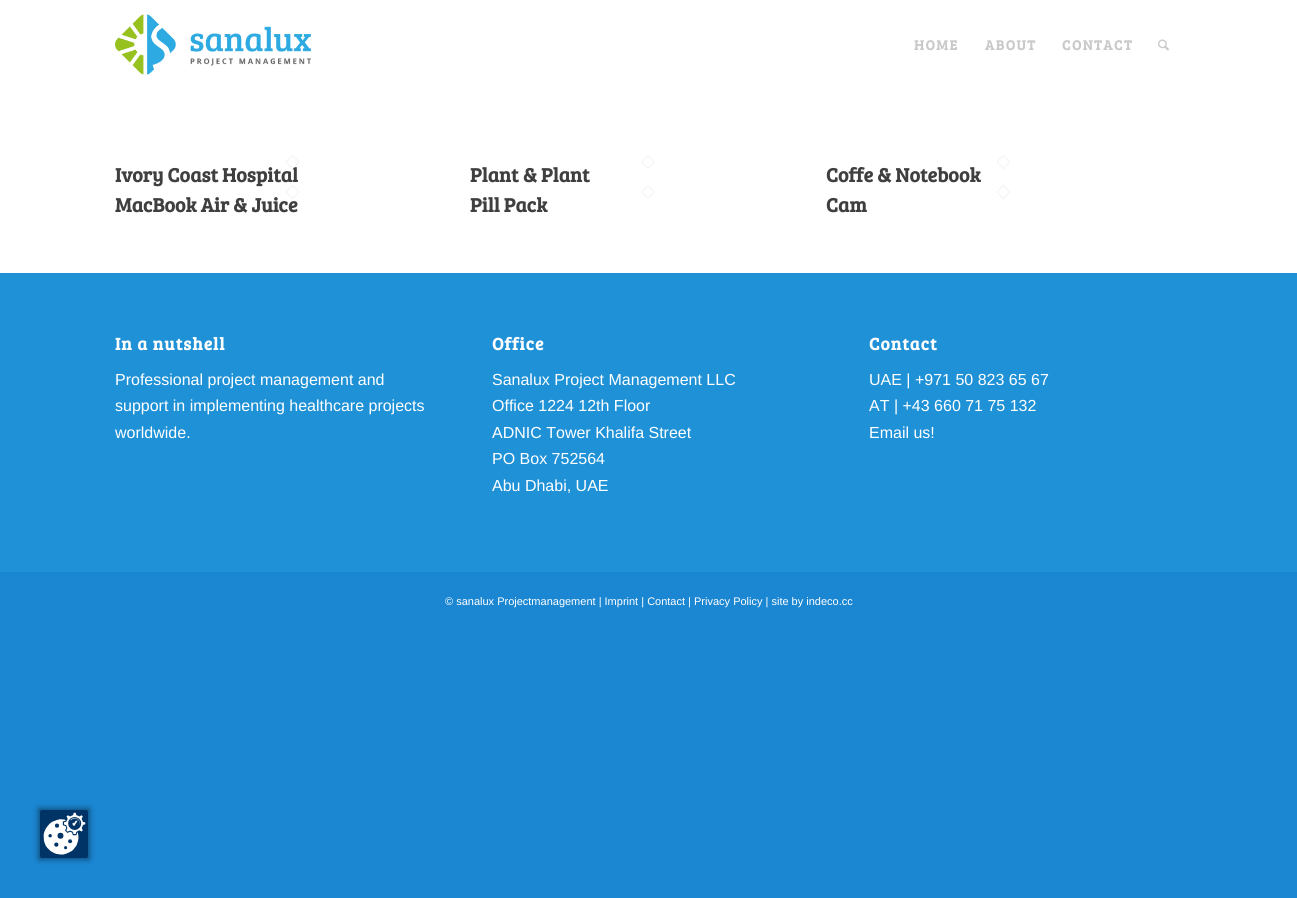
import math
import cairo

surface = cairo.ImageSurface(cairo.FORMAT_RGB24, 1297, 898)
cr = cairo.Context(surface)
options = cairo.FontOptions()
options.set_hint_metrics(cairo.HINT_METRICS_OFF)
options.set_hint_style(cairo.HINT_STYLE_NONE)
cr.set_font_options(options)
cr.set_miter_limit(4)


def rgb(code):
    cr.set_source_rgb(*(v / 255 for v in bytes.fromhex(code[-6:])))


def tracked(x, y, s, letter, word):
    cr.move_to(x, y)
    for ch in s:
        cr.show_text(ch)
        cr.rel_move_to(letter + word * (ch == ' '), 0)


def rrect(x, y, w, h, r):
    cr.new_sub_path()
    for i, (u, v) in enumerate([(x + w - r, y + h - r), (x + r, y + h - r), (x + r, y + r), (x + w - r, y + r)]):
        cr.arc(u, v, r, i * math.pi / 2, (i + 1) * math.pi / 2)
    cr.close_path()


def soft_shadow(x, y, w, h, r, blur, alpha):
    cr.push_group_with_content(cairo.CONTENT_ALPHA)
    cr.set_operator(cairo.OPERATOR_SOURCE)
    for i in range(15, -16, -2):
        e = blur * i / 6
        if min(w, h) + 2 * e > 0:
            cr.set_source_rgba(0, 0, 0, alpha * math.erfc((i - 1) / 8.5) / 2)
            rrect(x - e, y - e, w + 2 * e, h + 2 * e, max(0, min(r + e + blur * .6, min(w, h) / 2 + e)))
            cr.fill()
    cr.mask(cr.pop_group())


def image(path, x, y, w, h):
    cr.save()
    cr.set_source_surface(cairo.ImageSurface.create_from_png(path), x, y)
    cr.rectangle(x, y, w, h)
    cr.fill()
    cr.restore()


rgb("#1b86d2")
cr.paint()
rgb("#ffffff")
cr.rectangle(0, 0, 1297, 273)
cr.fill()
image("img/1.png", 115, 14, 196, 61)
image("img/2.png", 1158, 39, 11, 12)
cr.new_path()
cr.move_to(648, 155.5)
cr.line_to(654.5, 162)
cr.line_to(648, 168.5)
cr.line_to(641.5, 162)
cr.close_path()
rgb("#f2f2f2")
cr.set_line_width(1)
cr.stroke()
cr.new_path()
cr.move_to(1003.5, 155.5)
cr.line_to(1009.5, 162)
cr.line_to(1003.5, 168.5)
cr.line_to(997, 162)
cr.close_path()
cr.stroke()
cr.new_path()
cr.move_to(648, 185.5)
cr.line_to(654.5, 192)
cr.line_to(648, 198.5)
cr.line_to(641.5, 192)
cr.close_path()
cr.stroke()
cr.new_path()
cr.move_to(1003.5, 185.5)
cr.line_to(1009.5, 192)
cr.line_to(1003.5, 198.5)
cr.line_to(997, 192)
cr.close_path()
cr.stroke()
rgb("#1f91d7")
cr.rectangle(0, 273, 1297, 299)
cr.fill()
rgb("#000000")
soft_shadow(39, 809, 50, 50, 0, 3, 0.5)
image("img/3.png", 40, 810, 48, 48)
cr.select_font_face("Bree Serif", cairo.FONT_SLANT_NORMAL, cairo.FONT_WEIGHT_BOLD)
cr.set_font_size(14)
rgb("#c9c9c9")
for x, y, s in [
    (914, 50, "HOME"),
    (985, 50, "ABOUT"),
    (1062, 50, "CONTACT"),
]:
    tracked(x, y, s, 1.5, 0)
cr.set_font_size(20)
rgb("#403f40")
cr.move_to(115, 182)
cr.show_text("Ivory Coast Hospital")
rgb("#ffffff")
cr.new_path()
cr.move_to(292.5, 155)
cr.line_to(299.5, 162)
cr.line_to(292.5, 169)
cr.line_to(285.5, 162)
cr.close_path()
cr.fill()
cr.new_path()
cr.move_to(292.5, 155.5)
cr.line_to(299, 162)
cr.line_to(292.5, 168.5)
cr.line_to(286, 162)
cr.close_path()
rgb("#f2f2f2")
cr.stroke()
rgb("#403f40")
for x, y, s in [
    (470, 182, "Plant & Plant"),
    (826, 182, "Coffe & Notebook"),
    (115, 212, "MacBook Air & Juice"),
]:
    cr.move_to(x, y)
    cr.show_text(s)
cr.new_path()
cr.move_to(292.5, 185.5)
cr.line_to(299, 192)
cr.line_to(292.5, 198.5)
cr.line_to(286, 192)
cr.close_path()
rgb("#f2f2f2")
cr.stroke()
rgb("#403f40")
cr.move_to(470, 212)
cr.show_text("Pill Pack")
cr.move_to(826, 212)
cr.show_text("Cam")
cr.set_font_size(17.5)
rgb("#ffffff")
tracked(115, 350, "In a nutshell", 1, 0)
cr.select_font_face("Liberation Sans")
cr.set_font_size(16)
for x, y, s in [
    (115, 385, "Professional project management and"),
    (115, 411, "support in implementing healthcare projects"),
    (115, 438, "worldwide."),
]:
    cr.move_to(x, y)
    cr.show_text(s)
cr.select_font_face("Bree Serif", cairo.FONT_SLANT_NORMAL, cairo.FONT_WEIGHT_BOLD)
cr.set_font_size(17.5)
tracked(492, 350, "Office", 1, 0)
cr.select_font_face("Liberation Sans")
cr.set_font_size(16)
for x, y, s in [
    (492, 385, "Sanalux Project Management LLC"),
    (492, 411, "Office 1224 12th Floor"),
    (492, 438, "ADNIC Tower Khalifa Street"),
    (492, 464, "PO Box 752564"),
    (492, 491, "Abu Dhabi, UAE"),
]:
    cr.move_to(x, y)
    cr.show_text(s)
cr.select_font_face("Bree Serif", cairo.FONT_SLANT_NORMAL, cairo.FONT_WEIGHT_BOLD)
cr.set_font_size(17.5)
tracked(869, 350, "Contact", 1, 0)
cr.select_font_face("Liberation Sans")
cr.set_font_size(16)
for x, y, s in [
    (869, 385, "UAE | +971 50 823 65 67"),
    (869, 411, "AT | +43 660 71 75 132"),
    (869, 438, "Email us!"),
]:
    cr.move_to(x, y)
    cr.show_text(s)
cr.set_font_size(11)
cr.move_to(445, 605)
cr.show_text("© sanalux Projectmanagement | Imprint | Contact | Privacy Policy | site by indeco.cc")
surface.write_to_png("page.png")
